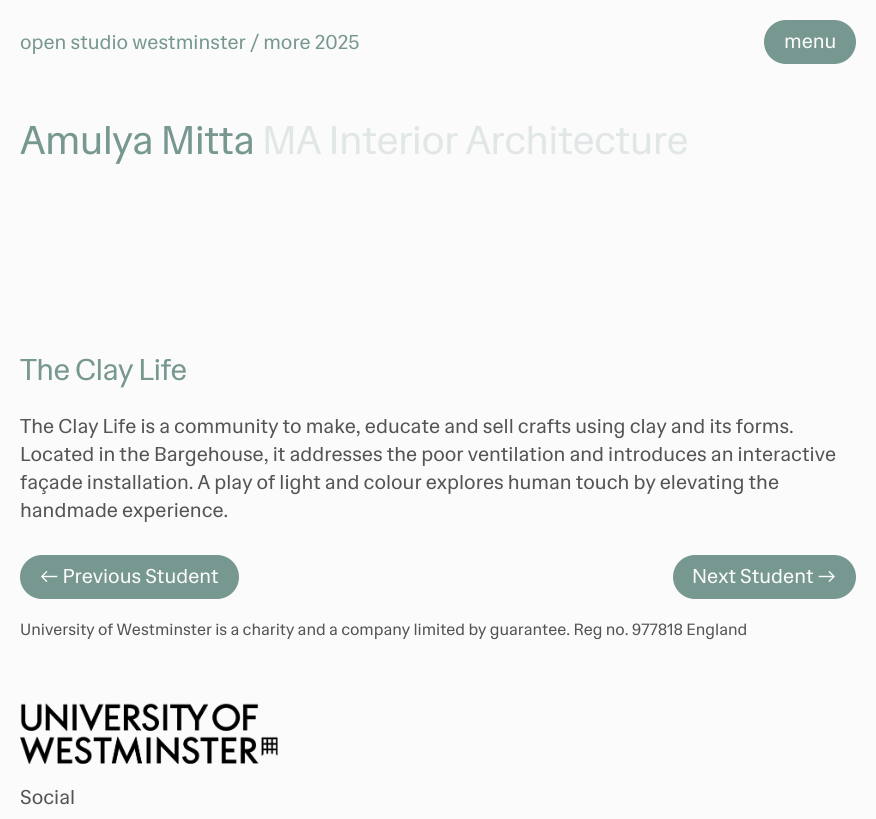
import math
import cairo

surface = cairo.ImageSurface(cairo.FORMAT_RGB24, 876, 819)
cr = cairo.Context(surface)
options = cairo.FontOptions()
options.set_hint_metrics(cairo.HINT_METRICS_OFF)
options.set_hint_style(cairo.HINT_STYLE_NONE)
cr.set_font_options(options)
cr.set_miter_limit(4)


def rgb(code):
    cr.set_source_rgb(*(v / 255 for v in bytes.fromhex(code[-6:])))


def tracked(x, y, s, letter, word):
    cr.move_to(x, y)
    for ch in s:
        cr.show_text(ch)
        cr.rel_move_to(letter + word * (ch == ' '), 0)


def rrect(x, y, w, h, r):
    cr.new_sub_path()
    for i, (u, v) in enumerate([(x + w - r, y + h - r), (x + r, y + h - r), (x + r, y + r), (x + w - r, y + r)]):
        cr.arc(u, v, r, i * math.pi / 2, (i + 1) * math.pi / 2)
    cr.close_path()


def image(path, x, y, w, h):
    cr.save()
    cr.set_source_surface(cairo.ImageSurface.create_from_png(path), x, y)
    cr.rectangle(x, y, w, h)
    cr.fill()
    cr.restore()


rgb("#fcfbfc")
cr.paint()
rgb("#779890")
rrect(764, 20, 92, 44, 22)
cr.fill()
rrect(20, 555, 219, 44, 22)
cr.fill()
rrect(673, 555, 183, 44, 22)
cr.fill()
image("img/1.png", 20, 703, 258, 61)
cr.select_font_face("Hedvig Letters Sans")
cr.set_font_size(20)
cr.move_to(20, 49)
cr.show_text("open studio westminster / more 2025")
rgb("#fcfbfc")
cr.move_to(784, 48)
cr.show_text("menu")
cr.set_font_size(40)
rgb("#779890")
tracked(20, 154, "Amulya Mitta", -0.6, 0)
rgb("#e1e7e6")
tracked(262, 154, "MA Interior Architecture", -0.6, 0)
cr.set_font_size(30)
rgb("#779890")
tracked(20, 380, "The Clay Life", -0.6, 0)
cr.set_font_size(20)
rgb("#545454")
for x, y, s in [
    (20, 433, "The Clay Life is a community to make, educate and sell crafts using clay and its forms."),
    (20, 461, "Located in the Bargehouse, it addresses the poor ventilation and introduces an interactive"),
    (20, 489, "façade installation. A play of light and colour explores human touch by elevating the"),
    (20, 517, "handmade experience."),
]:
    cr.move_to(x, y)
    cr.show_text(s)
rgb("#fcfbfc")
cr.move_to(40, 583)
cr.show_text("← Previous Student")
cr.move_to(692, 583)
cr.show_text("Next Student →")
cr.set_font_size(16.25)
rgb("#545454")
cr.move_to(20, 635)
cr.show_text("University of Westminster is a charity and a company limited by guarantee. Reg no. 977818 England")
cr.set_font_size(20)
cr.move_to(20, 804)
cr.show_text("Social")
surface.write_to_png("page.png")
